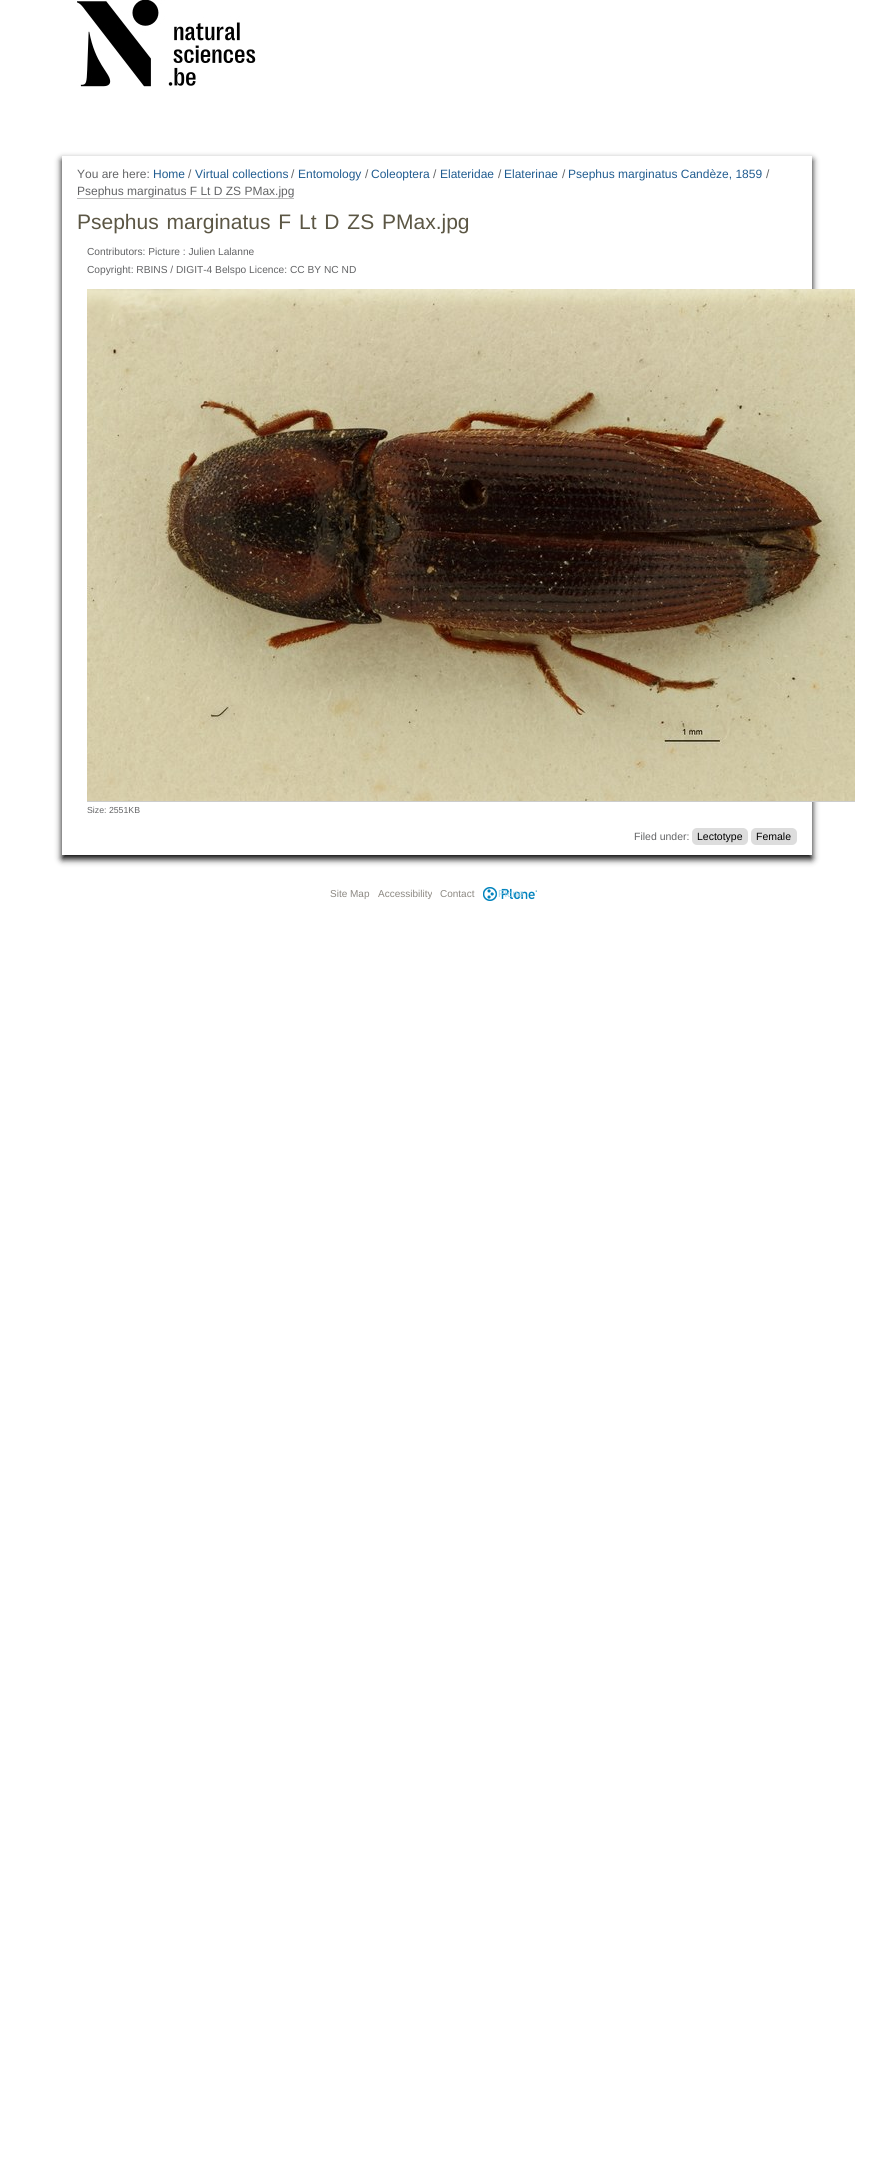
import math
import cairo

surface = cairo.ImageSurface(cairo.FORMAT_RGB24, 873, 2172)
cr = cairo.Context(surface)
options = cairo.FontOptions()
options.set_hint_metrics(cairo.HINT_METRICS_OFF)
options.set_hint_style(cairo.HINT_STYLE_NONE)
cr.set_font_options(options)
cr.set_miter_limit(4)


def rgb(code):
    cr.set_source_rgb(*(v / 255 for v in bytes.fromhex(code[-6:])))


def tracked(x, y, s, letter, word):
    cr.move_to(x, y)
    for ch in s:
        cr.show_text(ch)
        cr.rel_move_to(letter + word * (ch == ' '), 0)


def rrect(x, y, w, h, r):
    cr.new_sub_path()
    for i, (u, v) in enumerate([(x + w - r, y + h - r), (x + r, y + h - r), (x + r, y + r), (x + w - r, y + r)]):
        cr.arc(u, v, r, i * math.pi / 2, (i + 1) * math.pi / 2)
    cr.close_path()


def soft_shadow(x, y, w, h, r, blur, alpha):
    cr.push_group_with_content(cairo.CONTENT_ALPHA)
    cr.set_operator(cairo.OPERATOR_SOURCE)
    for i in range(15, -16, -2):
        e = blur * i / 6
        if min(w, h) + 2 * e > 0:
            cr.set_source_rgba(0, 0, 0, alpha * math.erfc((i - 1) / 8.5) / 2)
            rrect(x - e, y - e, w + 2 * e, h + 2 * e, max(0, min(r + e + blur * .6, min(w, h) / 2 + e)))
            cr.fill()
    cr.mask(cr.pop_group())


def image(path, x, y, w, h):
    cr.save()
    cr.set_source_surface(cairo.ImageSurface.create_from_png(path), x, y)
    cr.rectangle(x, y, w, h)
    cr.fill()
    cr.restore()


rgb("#ffffff")
cr.paint()
image("img/1.png", 77, 0, 179, 87)
cr.save()
cr.set_fill_rule(cairo.FILL_RULE_EVEN_ODD)
cr.new_path()
cr.move_to(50, 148)
cr.line_to(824, 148)
cr.line_to(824, 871)
cr.line_to(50, 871)
cr.close_path()
cr.move_to(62, 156)
cr.line_to(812, 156)
cr.line_to(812, 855)
cr.line_to(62, 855)
cr.close_path()
cr.clip()
rgb("#000000")
soft_shadow(62, 160, 750, 699, 0, 3.5, 1)
cr.restore()
rgb("#bbbbbb")
cr.rectangle(77, 198, 217, 1)
cr.fill()
rgb("#cccccc")
cr.rectangle(87, 801, 768, 1)
cr.fill()
image("img/2.png", 87, 289, 768, 512)
rgb("#dddddd")
rrect(692, 828, 56, 17, 5)
cr.fill()
rrect(751, 828, 46, 17, 5)
cr.fill()
image("img/3.png", 483, 887, 54, 14)
cr.select_font_face("Liberation Sans")
cr.set_font_size(12)
rgb("#636466")
cr.move_to(77, 178)
cr.show_text("You are here:")
rgb("#205c90")
cr.move_to(153, 178)
cr.show_text("Home")
rgb("#636466")
cr.move_to(188, 178)
cr.show_text("/")
rgb("#205c90")
cr.move_to(195, 178)
cr.show_text("Virtual collections")
rgb("#636466")
cr.move_to(291, 178)
cr.show_text("/")
rgb("#205c90")
cr.move_to(298, 178)
cr.show_text("Entomology")
rgb("#636466")
cr.move_to(365, 178)
cr.show_text("/")
rgb("#205c90")
cr.move_to(371, 178)
cr.show_text("Coleoptera")
rgb("#636466")
cr.move_to(433, 178)
cr.show_text("/")
rgb("#205c90")
cr.move_to(440, 178)
cr.show_text("Elateridae")
rgb("#636466")
cr.move_to(498, 178)
cr.show_text("/")
rgb("#205c90")
cr.move_to(504, 178)
cr.show_text("Elaterinae")
rgb("#636466")
cr.move_to(562, 178)
cr.show_text("/")
rgb("#205c90")
cr.move_to(568, 178)
cr.show_text("Psephus marginatus Candèze, 1859")
rgb("#636466")
cr.move_to(766, 178)
cr.show_text("/")
cr.move_to(77, 195)
cr.show_text("Psephus marginatus F Lt D ZS PMax.jpg")
cr.set_font_size(21)
rgb("#5b5644")
tracked(77, 229, "Psephus marginatus F Lt D ZS PMax.jpg", 0, 2)
cr.set_font_size(10.2)
rgb("#636466")
cr.move_to(87, 255)
cr.show_text("Contributors: Picture : Julien Lalanne")
cr.move_to(87, 273)
cr.show_text("Copyright: RBINS / DIGIT-4 Belspo Licence: CC BY NC ND")
cr.set_font_size(8.75)
cr.move_to(87, 813)
cr.show_text("Size: 2551KB")
cr.set_font_size(10.5)
cr.move_to(634, 840)
cr.show_text("Filed under:")
rgb("#000000")
cr.move_to(697, 840)
cr.show_text("Lectotype")
cr.move_to(756, 840)
cr.show_text("Female")
cr.set_font_size(10)
rgb("#8c8882")
for x, y, s in [
    (330, 897, "Site Map"),
    (378, 897, "Accessibility"),
    (440, 897, "Contact"),
]:
    cr.move_to(x, y)
    cr.show_text(s)
rgb("#9fd0e6")
cr.move_to(498, 897)
cr.show_text("Plone")
surface.write_to_png("page.png")
